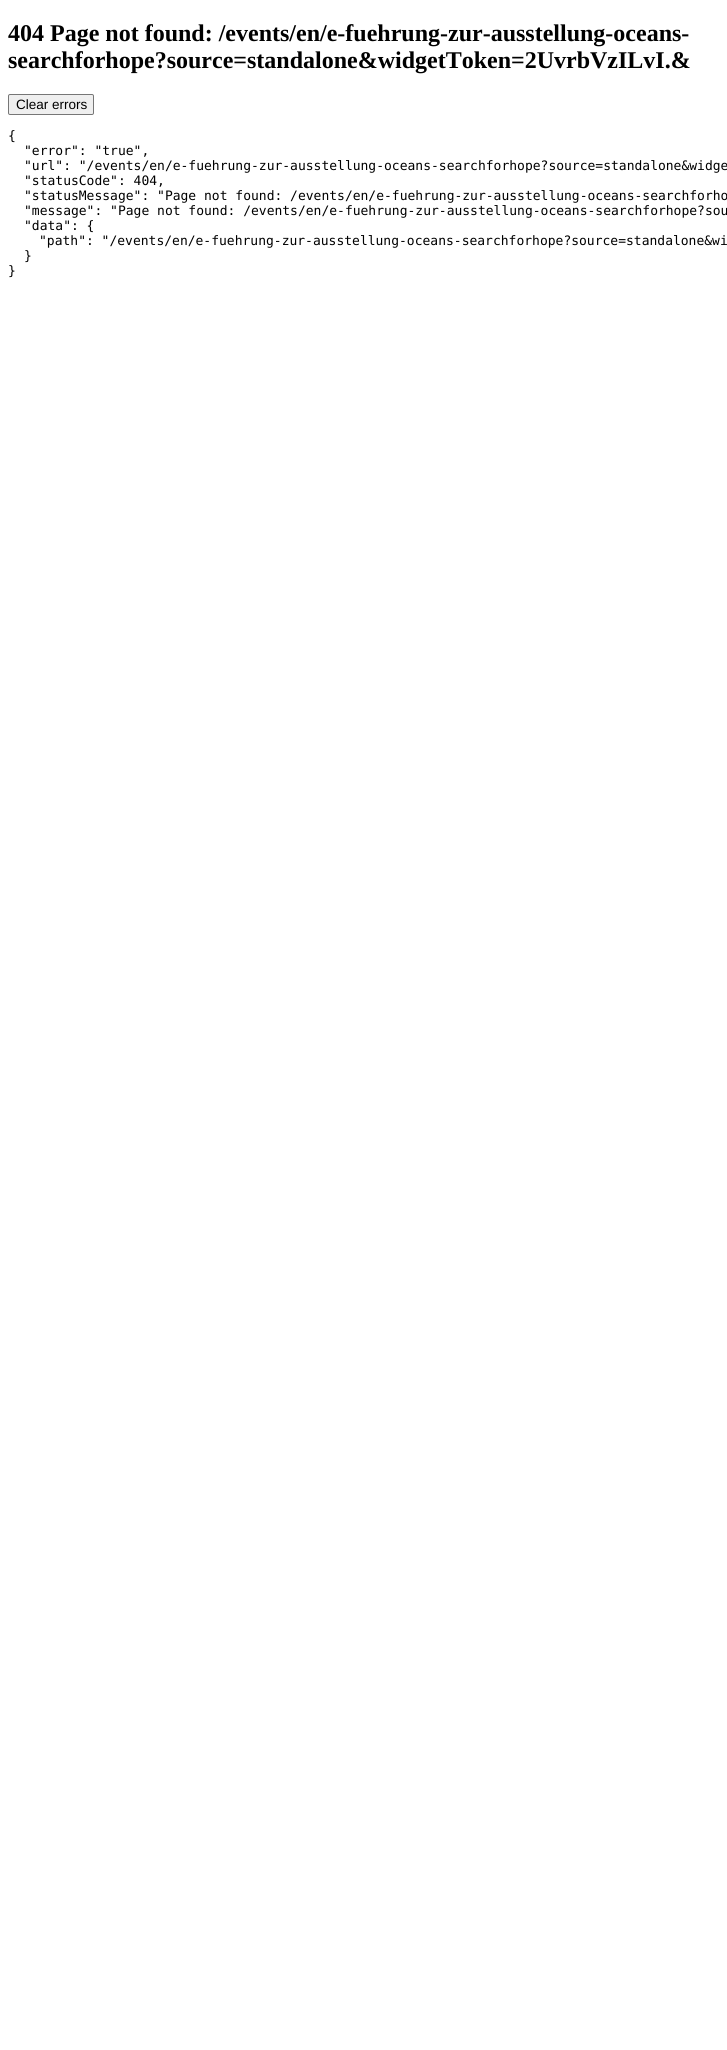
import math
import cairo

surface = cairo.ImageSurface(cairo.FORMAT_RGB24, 727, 2050)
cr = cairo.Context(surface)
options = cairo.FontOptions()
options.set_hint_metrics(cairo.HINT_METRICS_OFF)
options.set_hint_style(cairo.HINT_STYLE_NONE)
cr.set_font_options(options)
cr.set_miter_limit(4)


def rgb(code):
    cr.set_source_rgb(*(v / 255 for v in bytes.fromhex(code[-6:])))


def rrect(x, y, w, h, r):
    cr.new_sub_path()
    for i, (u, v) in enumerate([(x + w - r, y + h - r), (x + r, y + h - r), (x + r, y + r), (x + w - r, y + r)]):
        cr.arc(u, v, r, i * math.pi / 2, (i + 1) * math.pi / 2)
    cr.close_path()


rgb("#ffffff")
cr.paint()
rgb("#efefef")
rrect(8.5, 94.5, 85, 20, 1.5)
cr.fill_preserve()
rgb("#767676")
cr.set_line_width(1)
cr.stroke()
cr.select_font_face("Liberation Serif", cairo.FONT_SLANT_NORMAL, cairo.FONT_WEIGHT_BOLD)
cr.set_font_size(24)
rgb("#000000")
cr.move_to(8, 41)
cr.show_text("404 Page not found: /events/en/e-fuehrung-zur-ausstellung-oceans-")
cr.move_to(8, 68)
cr.show_text("searchforhope?source=standalone&widgetToken=2UvrbVzILvI.&")
cr.select_font_face("Liberation Sans")
cr.set_font_size(13.5)
cr.move_to(16, 109)
cr.show_text("Clear errors")
cr.select_font_face("DejaVu Sans Mono")
cr.set_font_size(13)
for x, y, s in [
    (8, 140, "{"),
    (24, 155, "\"error\": \"true\","),
    (24, 170, "\"url\": \"/events/en/e-fuehrung-zur-ausstellung-oceans-searchforhope?source=standalone&widge"),
    (24, 185, "\"statusCode\": 404,"),
    (24, 200, "\"statusMessage\": \"Page not found: /events/en/e-fuehrung-zur-ausstellung-oceans-searchforho"),
    (24, 215, "\"message\": \"Page not found: /events/en/e-fuehrung-zur-ausstellung-oceans-searchforhope?sou"),
    (24, 230, "\"data\": {"),
    (39, 245, "\"path\": \"/events/en/e-fuehrung-zur-ausstellung-oceans-searchforhope?source=standalone&wi"),
    (24, 260, "}"),
    (8, 275, "}"),
]:
    cr.move_to(x, y)
    cr.show_text(s)
surface.write_to_png("page.png")
